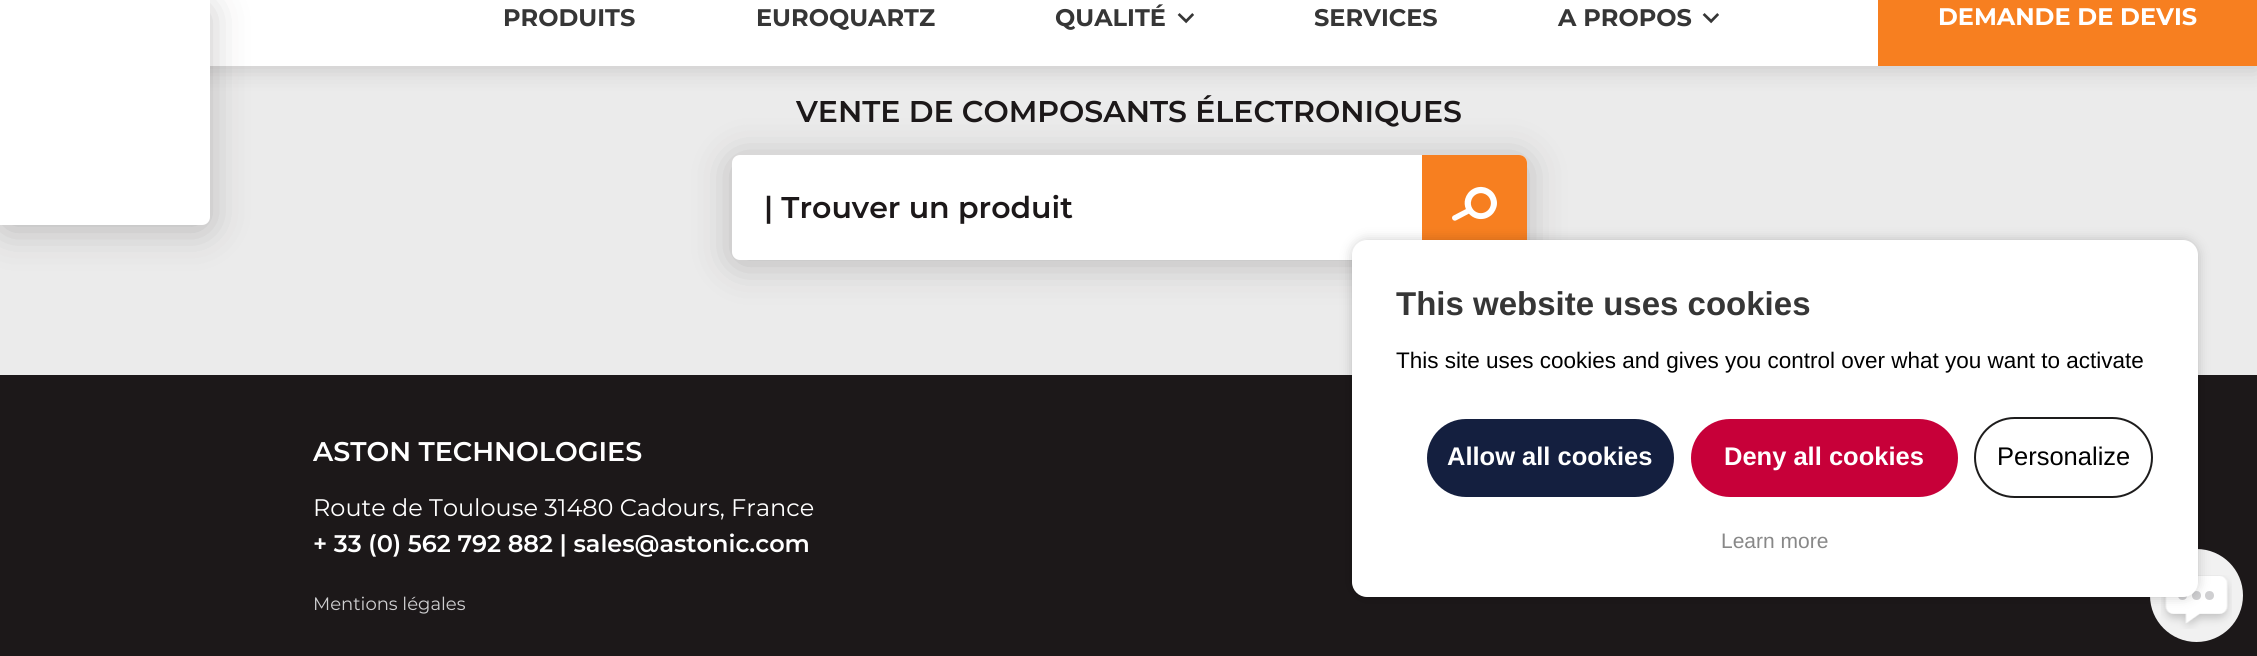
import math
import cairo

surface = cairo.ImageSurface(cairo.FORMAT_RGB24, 2257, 656)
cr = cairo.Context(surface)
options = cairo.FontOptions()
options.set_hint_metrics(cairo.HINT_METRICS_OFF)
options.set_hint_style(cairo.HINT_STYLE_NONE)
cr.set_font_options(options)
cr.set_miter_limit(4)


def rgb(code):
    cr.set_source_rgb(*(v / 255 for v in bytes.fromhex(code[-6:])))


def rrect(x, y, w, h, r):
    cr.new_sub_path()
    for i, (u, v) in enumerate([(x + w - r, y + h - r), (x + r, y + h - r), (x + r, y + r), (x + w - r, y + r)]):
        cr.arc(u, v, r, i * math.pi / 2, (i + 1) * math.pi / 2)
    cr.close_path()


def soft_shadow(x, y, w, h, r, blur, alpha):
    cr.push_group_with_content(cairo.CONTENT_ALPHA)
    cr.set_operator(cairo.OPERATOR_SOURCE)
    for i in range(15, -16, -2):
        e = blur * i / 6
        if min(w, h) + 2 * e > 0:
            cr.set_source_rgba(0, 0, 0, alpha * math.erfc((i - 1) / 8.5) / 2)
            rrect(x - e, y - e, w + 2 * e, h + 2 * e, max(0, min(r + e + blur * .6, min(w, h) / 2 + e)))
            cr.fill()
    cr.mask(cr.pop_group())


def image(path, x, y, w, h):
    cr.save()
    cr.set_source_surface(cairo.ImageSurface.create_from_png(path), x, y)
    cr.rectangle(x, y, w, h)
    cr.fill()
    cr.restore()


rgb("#ebebeb")
cr.paint()
rgb("#1c1819")
soft_shadow(0, -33, 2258, 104, 0, 11, 0.15)
rgb("#ffffff")
cr.rectangle(210, 0, 1668, 66)
cr.fill()
rgb("#1c1819")
soft_shadow(0, 5, 210, 225, 8, 19, 0.25)
rgb("#ffffff")
cr.new_path()
cr.move_to(0, 0)
cr.line_to(210, 0)
cr.line_to(210, 217)
cr.curve_to(210, 221.5, 206.5, 225, 202, 225)
cr.line_to(0, 225)
cr.close_path()
cr.fill()
image("img/1.png", 1177, 13, 17, 11)
image("img/1.png", 1702, 13, 17, 11)
rgb("#f77f20")
cr.rectangle(1878, 0, 379, 66)
cr.fill()
rgb("#1c1819")
soft_shadow(732, 159, 795, 105, 8, 19, 0.25)
rgb("#ffffff")
rrect(733.5, 156.5, 792, 102, 6.5)
cr.fill_preserve()
cr.set_line_width(3)
cr.stroke()
rgb("#f77f20")
cr.new_path()
cr.move_to(1422, 155)
cr.line_to(1519, 155)
cr.curve_to(1523.5, 155, 1527, 158.5, 1527, 163)
cr.line_to(1527, 252)
cr.curve_to(1527, 256.5, 1523.5, 260, 1519, 260)
cr.line_to(1422, 260)
cr.close_path()
cr.fill()
image("img/2.png", 1452, 186, 45, 35)
rgb("#1c1819")
cr.rectangle(0, 375, 2257, 281)
cr.fill()
rgb("#f1f1f1")
cr.arc(2196.5, 595.5, 46.5, 0, 2 * math.pi)
cr.fill()
image("img/3.png", 2161, 575, 71, 54)
rgb("#cfcfd1")
cr.arc(2182.5, 595.5, 4.5, 0, 2 * math.pi)
cr.fill()
cr.arc(2196.5, 595.5, 4.5, 0, 2 * math.pi)
cr.fill()
cr.arc(2209.5, 595.5, 4.5, 0, 2 * math.pi)
cr.fill()
rgb("#000000")
soft_shadow(1352, 240, 846, 357, 15, 6, 0.2)
rgb("#ffffff")
rrect(1352, 240, 846, 357, 15)
cr.fill()
rgb("#141f3f")
rrect(1427, 419, 247, 78, 39)
cr.fill()
rgb("#c70039")
rrect(1691, 419, 267, 78, 39)
cr.fill()
rrect(1975, 418, 177, 79, 39.5)
rgb("#1d1c1c")
cr.set_line_width(2)
cr.stroke()
cr.select_font_face("Montserrat", cairo.FONT_SLANT_NORMAL, cairo.FONT_WEIGHT_BOLD)
cr.set_font_size(24)
rgb("#363636")
for x, y, s in [
    (503, 26, "PRODUITS"),
    (756, 26, "EUROQUARTZ"),
    (1055, 26, "QUALITÉ"),
    (1314, 26, "SERVICES"),
    (1558, 26, "A PROPOS"),
]:
    cr.move_to(x, y)
    cr.show_text(s)
rgb("#ffffff")
cr.move_to(1938, 25)
cr.show_text("DEMANDE DE DEVIS")
cr.select_font_face("Montserrat SemiBold")
cr.set_font_size(30)
rgb("#1c1819")
cr.move_to(796, 122)
cr.show_text("VENTE DE COMPOSANTS ÉLECTRONIQUES")
cr.move_to(764, 218)
cr.show_text("| Trouver un produit")
cr.set_font_size(27)
rgb("#ffffff")
cr.move_to(313, 461)
cr.show_text("ASTON TECHNOLOGIES")
cr.select_font_face("Montserrat")
cr.set_font_size(24)
cr.move_to(313, 516)
cr.show_text("Route de Toulouse 31480 Cadours, France")
cr.select_font_face("Montserrat SemiBold")
cr.move_to(313, 552)
cr.show_text("+ 33 (0) 562 792 882 | sales@astonic.com")
cr.select_font_face("Montserrat")
cr.set_font_size(18)
rgb("#cfcfd1")
cr.move_to(313, 610)
cr.show_text("Mentions légales")
cr.select_font_face("Liberation Sans", cairo.FONT_SLANT_NORMAL, cairo.FONT_WEIGHT_BOLD)
cr.set_font_size(33)
rgb("#363636")
cr.move_to(1396, 315)
cr.show_text("This website uses cookies")
cr.select_font_face("Liberation Sans")
cr.set_font_size(22.5)
rgb("#000000")
cr.move_to(1396, 368)
cr.show_text("This site uses cookies and gives you control over what you want to activate")
cr.select_font_face("Liberation Sans", cairo.FONT_SLANT_NORMAL, cairo.FONT_WEIGHT_BOLD)
cr.set_font_size(25.5)
rgb("#ffffff")
cr.move_to(1447, 465)
cr.show_text("Allow all cookies")
cr.move_to(1724, 465)
cr.show_text("Deny all cookies")
cr.select_font_face("Liberation Sans")
rgb("#000000")
cr.move_to(1997, 465)
cr.show_text("Personalize")
cr.set_font_size(21)
rgb("#888888")
cr.move_to(1721, 548)
cr.show_text("Learn more")
surface.write_to_png("page.png")
